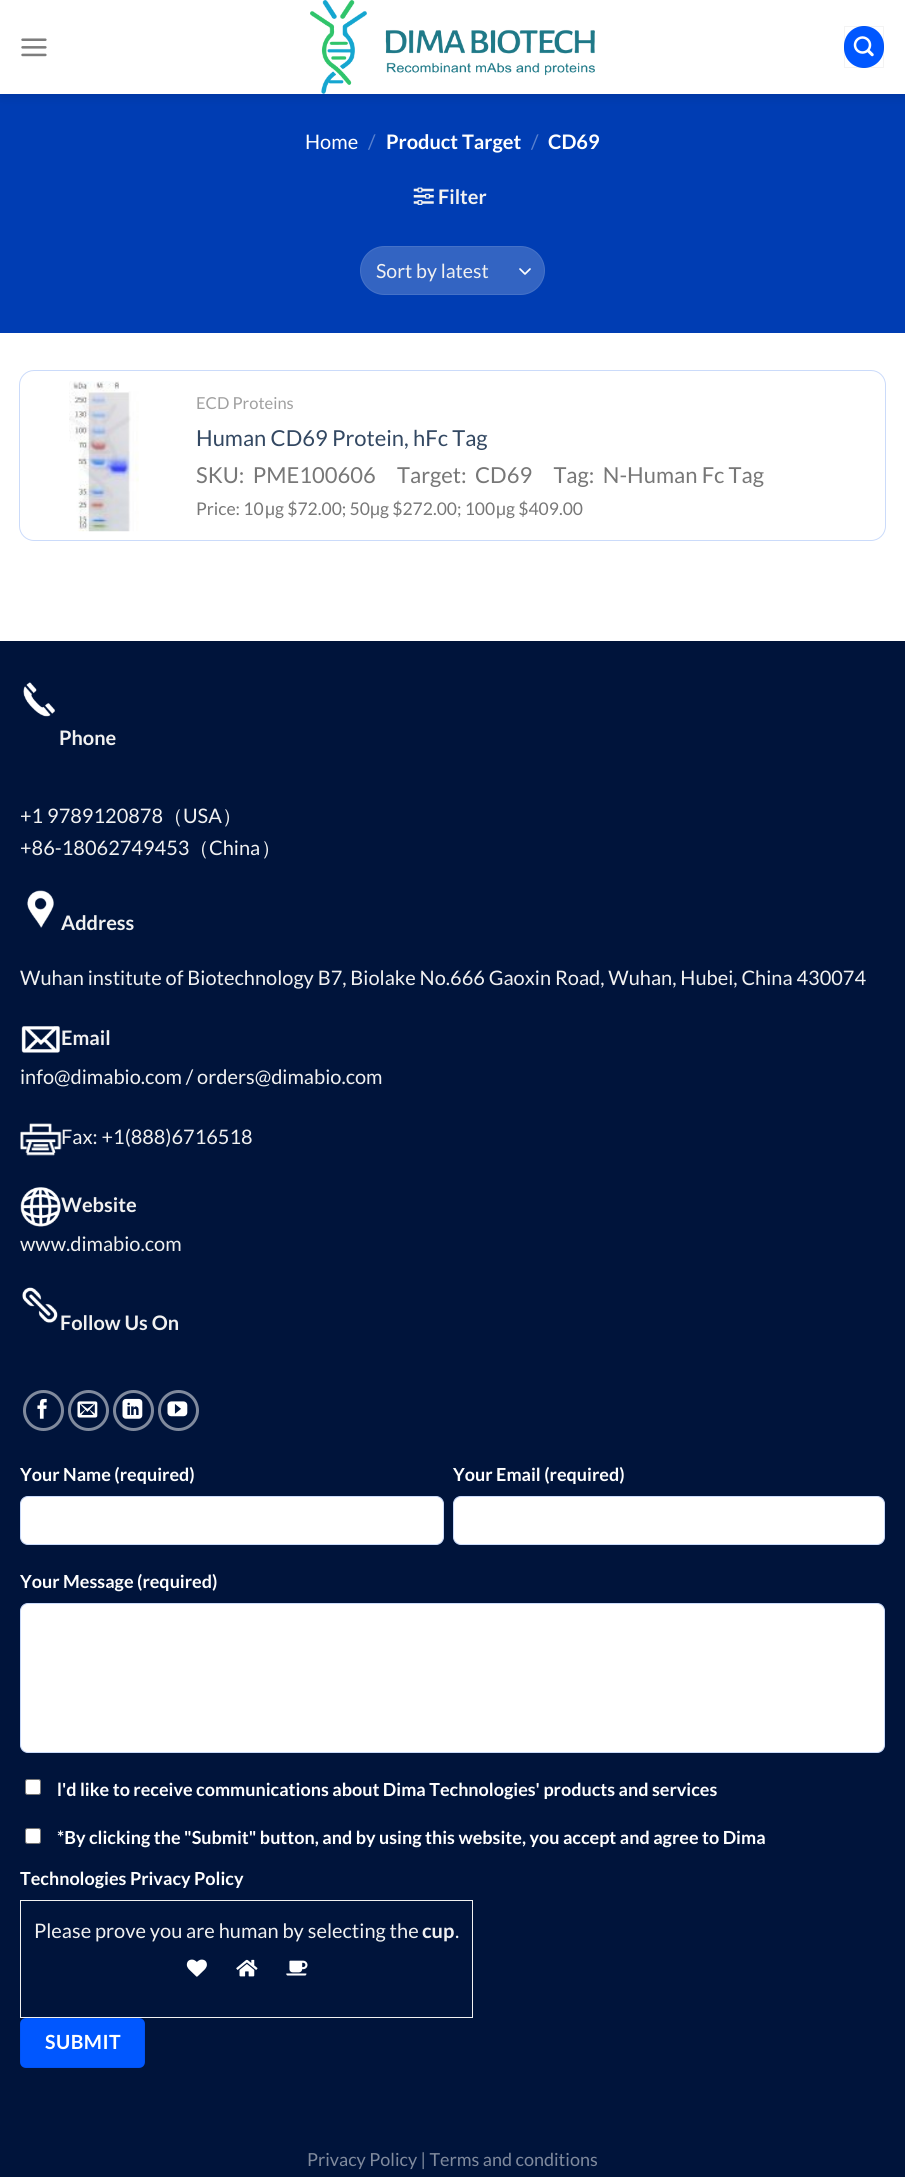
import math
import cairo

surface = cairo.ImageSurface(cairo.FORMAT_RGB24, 905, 2177)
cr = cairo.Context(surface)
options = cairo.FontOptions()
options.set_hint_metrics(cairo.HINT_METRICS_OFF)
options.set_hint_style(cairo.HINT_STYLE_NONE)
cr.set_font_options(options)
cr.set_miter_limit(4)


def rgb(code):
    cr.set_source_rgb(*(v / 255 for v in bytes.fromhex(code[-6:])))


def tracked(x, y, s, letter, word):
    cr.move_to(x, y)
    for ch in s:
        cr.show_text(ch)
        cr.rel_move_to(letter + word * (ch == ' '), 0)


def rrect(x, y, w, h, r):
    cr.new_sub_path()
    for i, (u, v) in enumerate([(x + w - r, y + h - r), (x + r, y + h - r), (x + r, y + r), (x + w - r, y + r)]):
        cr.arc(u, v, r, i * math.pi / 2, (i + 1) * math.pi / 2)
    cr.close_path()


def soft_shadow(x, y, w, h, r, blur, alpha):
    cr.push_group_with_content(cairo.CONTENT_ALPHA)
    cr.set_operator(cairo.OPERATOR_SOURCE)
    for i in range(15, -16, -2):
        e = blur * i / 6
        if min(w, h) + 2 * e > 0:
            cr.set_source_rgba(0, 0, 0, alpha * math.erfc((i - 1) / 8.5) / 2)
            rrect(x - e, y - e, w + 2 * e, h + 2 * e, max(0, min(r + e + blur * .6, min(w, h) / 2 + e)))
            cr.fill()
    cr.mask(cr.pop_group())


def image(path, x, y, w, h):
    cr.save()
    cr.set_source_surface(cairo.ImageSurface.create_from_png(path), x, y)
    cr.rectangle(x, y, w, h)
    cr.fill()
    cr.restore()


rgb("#ffffff")
cr.paint()
rgb("#003db3")
cr.rectangle(0, 94, 905, 239)
cr.fill()
cr.save()
cr.set_fill_rule(cairo.FILL_RULE_EVEN_ODD)
cr.new_path()
cr.move_to(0, 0)
cr.line_to(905, 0)
cr.line_to(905, 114)
cr.line_to(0, 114)
cr.close_path()
cr.move_to(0, 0)
cr.line_to(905, 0)
cr.line_to(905, 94)
cr.line_to(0, 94)
cr.close_path()
cr.clip()
rgb("#000000")
soft_shadow(1, 1, 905, 94, 0, 6, 0.15)
cr.restore()
image("img/1.png", 21, 38, 26, 19)
cr.set_source_rgba(1, 1, 1, 0.9)
cr.rectangle(1, 93, 904, 1)
cr.fill()
image("img/2.png", 310, 0, 285, 94)
rgb("#0057ff")
rrect(844, 26, 40, 42, 20)
cr.fill()
cr.rectangle(844.5, 26.5, 39, 41)
cr.set_source_rgba(0, 0, 0, 0.05)
cr.set_line_width(1)
cr.stroke()
image("img/3.png", 853, 36, 21, 21)
image("img/4.png", 413, 187, 21, 18)
rgb("#3364c2")
rrect(360, 246, 185, 49, 24.5)
cr.fill()
cr.new_path()
cr.move_to(520, 269)
cr.line_to(525, 274)
cr.line_to(530, 269)
rgb("#ffffff")
cr.set_line_width(1.7)
cr.set_line_cap(cairo.LINE_CAP_ROUND)
cr.set_line_join(cairo.LINE_JOIN_ROUND)
cr.stroke()
rrect(360.5, 246.5, 184, 48, 24)
cr.set_source_rgba(1, 1, 1, 0.09)
cr.set_line_width(1)
cr.set_line_cap(cairo.LINE_CAP_BUTT)
cr.set_line_join(cairo.LINE_JOIN_MITER)
cr.stroke()
rrect(19.5, 370.5, 866, 170, 14.5)
rgb("#cbdbfa")
cr.stroke()
image("img/5.png", 69, 381, 70, 151)
rgb("#00143b")
cr.rectangle(0, 642, 905, 1535)
cr.fill()
rgb("#001338")
cr.rectangle(0, 641, 905, 1)
cr.fill()
image("img/6.png", 23, 682, 32, 35)
image("img/7.png", 27, 890, 27, 38)
image("img/8.png", 21, 1026, 39, 27)
image("img/9.png", 20, 1123, 42, 33)
image("img/10.png", 20, 1187, 41, 40)
image("img/11.png", 22, 1287, 36, 36)
cr.arc(43.5, 1410.5, 19, 0, 2 * math.pi)
rgb("#808a9d")
cr.set_line_width(3)
cr.stroke()
image("img/12.png", 37, 1398, 10, 21)
cr.arc(88.5, 1410.5, 19, 0, 2 * math.pi)
cr.stroke()
image("img/13.png", 77, 1401, 21, 17)
cr.arc(133.5, 1410.5, 19, 0, 2 * math.pi)
cr.stroke()
image("img/14.png", 122, 1398, 21, 21)
cr.arc(178.5, 1410.5, 19, 0, 2 * math.pi)
cr.stroke()
image("img/15.png", 167, 1401, 21, 16)
rgb("#ffffff")
rrect(20.5, 1496.5, 423, 48, 7.5)
cr.fill_preserve()
rgb("#cbdbfa")
cr.set_line_width(1)
cr.stroke()
rgb("#ffffff")
rrect(453.5, 1496.5, 431, 48, 7.5)
cr.fill_preserve()
rgb("#cbdbfa")
cr.stroke()
rgb("#ffffff")
rrect(20.5, 1603.5, 864, 149, 7.5)
cr.fill_preserve()
rgb("#cbdbfa")
cr.stroke()
rgb("#ffffff")
rrect(25.5, 1779.5, 15, 15, 2)
cr.fill_preserve()
rgb("#767676")
cr.stroke()
rgb("#ffffff")
rrect(25.5, 1828.5, 15, 15, 2)
cr.fill_preserve()
rgb("#767676")
cr.stroke()
cr.rectangle(20.5, 1900.5, 452, 117)
rgb("#f1f1f1")
cr.stroke()
image("img/16.png", 186, 1959, 21, 18)
image("img/17.png", 236, 1959, 22, 18)
image("img/18.png", 286, 1960, 22, 16)
rgb("#0057ff")
rrect(20, 2018, 125, 50, 6)
cr.fill()
cr.rectangle(20.5, 2018.5, 124, 49)
cr.set_source_rgba(0, 0, 0, 0.05)
cr.stroke()
cr.select_font_face("Lato")
cr.set_font_size(20)
rgb("#ffffff")
cr.move_to(305, 149)
cr.show_text("Home")
rgb("#5981ce")
cr.move_to(368, 149)
cr.show_text("/")
cr.select_font_face("Lato", cairo.FONT_SLANT_NORMAL, cairo.FONT_WEIGHT_BOLD)
rgb("#ffffff")
cr.move_to(386, 149)
cr.show_text("Product Target")
cr.select_font_face("Lato")
rgb("#5981ce")
cr.move_to(531, 149)
cr.show_text("/")
cr.select_font_face("Lato", cairo.FONT_SLANT_NORMAL, cairo.FONT_WEIGHT_BOLD)
rgb("#ffffff")
cr.move_to(548, 149)
cr.show_text("CD69")
rgb("#f1f1f1")
cr.move_to(438, 204)
cr.show_text("Filter")
cr.select_font_face("Lato")
cr.set_font_size(19.5)
cr.move_to(376, 278)
cr.show_text("Sort by latest")
cr.set_font_size(16.5)
rgb("#a0a0a0")
cr.move_to(196, 409)
cr.show_text("ECD Proteins")
cr.set_font_size(22)
rgb("#334862")
cr.move_to(196, 446)
cr.show_text("Human CD69 Protein, hFc Tag")
rgb("#777777")
cr.move_to(196, 483)
cr.show_text("SKU:  PME100606     Target:  CD69     Tag:  N-Human Fc Tag")
cr.set_font_size(17.5)
cr.move_to(196, 515)
cr.show_text("Price: 10")
cr.select_font_face("Liberation Sans")
cr.move_to(265, 515)
cr.show_text("μ")
cr.select_font_face("Lato")
cr.move_to(275, 515)
cr.show_text("g $72.00; 50")
cr.select_font_face("Liberation Sans")
cr.move_to(370, 515)
cr.show_text("μ")
cr.select_font_face("Lato")
cr.move_to(380, 515)
cr.show_text("g $272.00; 100")
cr.select_font_face("Liberation Sans")
cr.move_to(496, 515)
cr.show_text("μ")
cr.select_font_face("Lato")
cr.move_to(506, 515)
cr.show_text("g $409.00")
cr.select_font_face("Lato", cairo.FONT_SLANT_NORMAL, cairo.FONT_WEIGHT_BOLD)
cr.set_font_size(20)
rgb("#f1f1f1")
cr.move_to(59, 745)
cr.show_text("Phone")
cr.select_font_face("Lato")
cr.move_to(20, 823)
cr.show_text("+1 9789120878")
cr.select_font_face("WenQuanYi Zen Hei Medium")
cr.move_to(163, 823)
cr.show_text("（")
cr.select_font_face("Lato")
cr.move_to(183, 823)
cr.show_text("USA")
cr.select_font_face("WenQuanYi Zen Hei Medium")
cr.move_to(222, 823)
cr.show_text("）")
cr.select_font_face("Lato")
cr.move_to(20, 855)
cr.show_text("+86-18062749453")
cr.select_font_face("WenQuanYi Zen Hei Medium")
cr.move_to(189, 855)
cr.show_text("（")
cr.select_font_face("Lato")
cr.move_to(209, 855)
cr.show_text("China")
cr.select_font_face("WenQuanYi Zen Hei Medium")
cr.move_to(261, 855)
cr.show_text("）")
cr.select_font_face("Lato", cairo.FONT_SLANT_NORMAL, cairo.FONT_WEIGHT_BOLD)
cr.move_to(61, 930)
cr.show_text("Address")
cr.select_font_face("Lato")
cr.move_to(20, 985)
cr.show_text("Wuhan institute of Biotechnology B7, Biolake No.666 Gaoxin Road, Wuhan, Hubei, China 430074")
cr.select_font_face("Lato", cairo.FONT_SLANT_NORMAL, cairo.FONT_WEIGHT_BOLD)
cr.move_to(61, 1045)
cr.show_text("Email")
cr.select_font_face("Lato")
cr.move_to(20, 1084)
cr.show_text("info@dimabio.com / orders@dimabio.com")
cr.move_to(61, 1144)
cr.show_text("Fax: +1(888)6716518")
cr.select_font_face("Lato", cairo.FONT_SLANT_NORMAL, cairo.FONT_WEIGHT_BOLD)
cr.move_to(61, 1212)
cr.show_text("Website")
cr.select_font_face("Lato")
cr.move_to(20, 1251)
cr.show_text("www.dimabio.com")
cr.select_font_face("Lato", cairo.FONT_SLANT_NORMAL, cairo.FONT_WEIGHT_BOLD)
cr.move_to(60, 1330)
cr.show_text("Follow Us On")
cr.set_font_size(18)
rgb("#ffffff")
for x, y, s in [
    (20, 1481, "Your Name (required)"),
    (453, 1481, "Your Email (required)"),
    (20, 1588, "Your Message (required)"),
    (57, 1796, "l'd like to receive communications about Dima Technologies' products and services"),
    (57, 1844, "*By clicking the \"Submit\" button, and by using this website, you accept and agree to Dima"),
    (20, 1885, "Technologies Privacy Policy"),
]:
    cr.move_to(x, y)
    cr.show_text(s)
cr.select_font_face("Lato")
cr.set_font_size(20)
rgb("#f1f1f1")
cr.move_to(34, 1938)
cr.show_text("Please prove you are human by selecting the")
cr.select_font_face("Lato", cairo.FONT_SLANT_NORMAL, cairo.FONT_WEIGHT_BOLD)
cr.move_to(422, 1938)
cr.show_text("cup")
cr.select_font_face("Lato")
cr.move_to(455, 1938)
cr.show_text(".")
cr.select_font_face("Lato", cairo.FONT_SLANT_NORMAL, cairo.FONT_WEIGHT_BOLD)
cr.set_font_size(19.5)
rgb("#ffffff")
tracked(45, 2049, "SUBMIT", 0.5, 0)
cr.select_font_face("Lato")
cr.set_font_size(18)
rgb("#808a9d")
cr.move_to(307, 2166)
cr.show_text("Privacy Policy | Terms and conditions")
surface.write_to_png("page.png")
